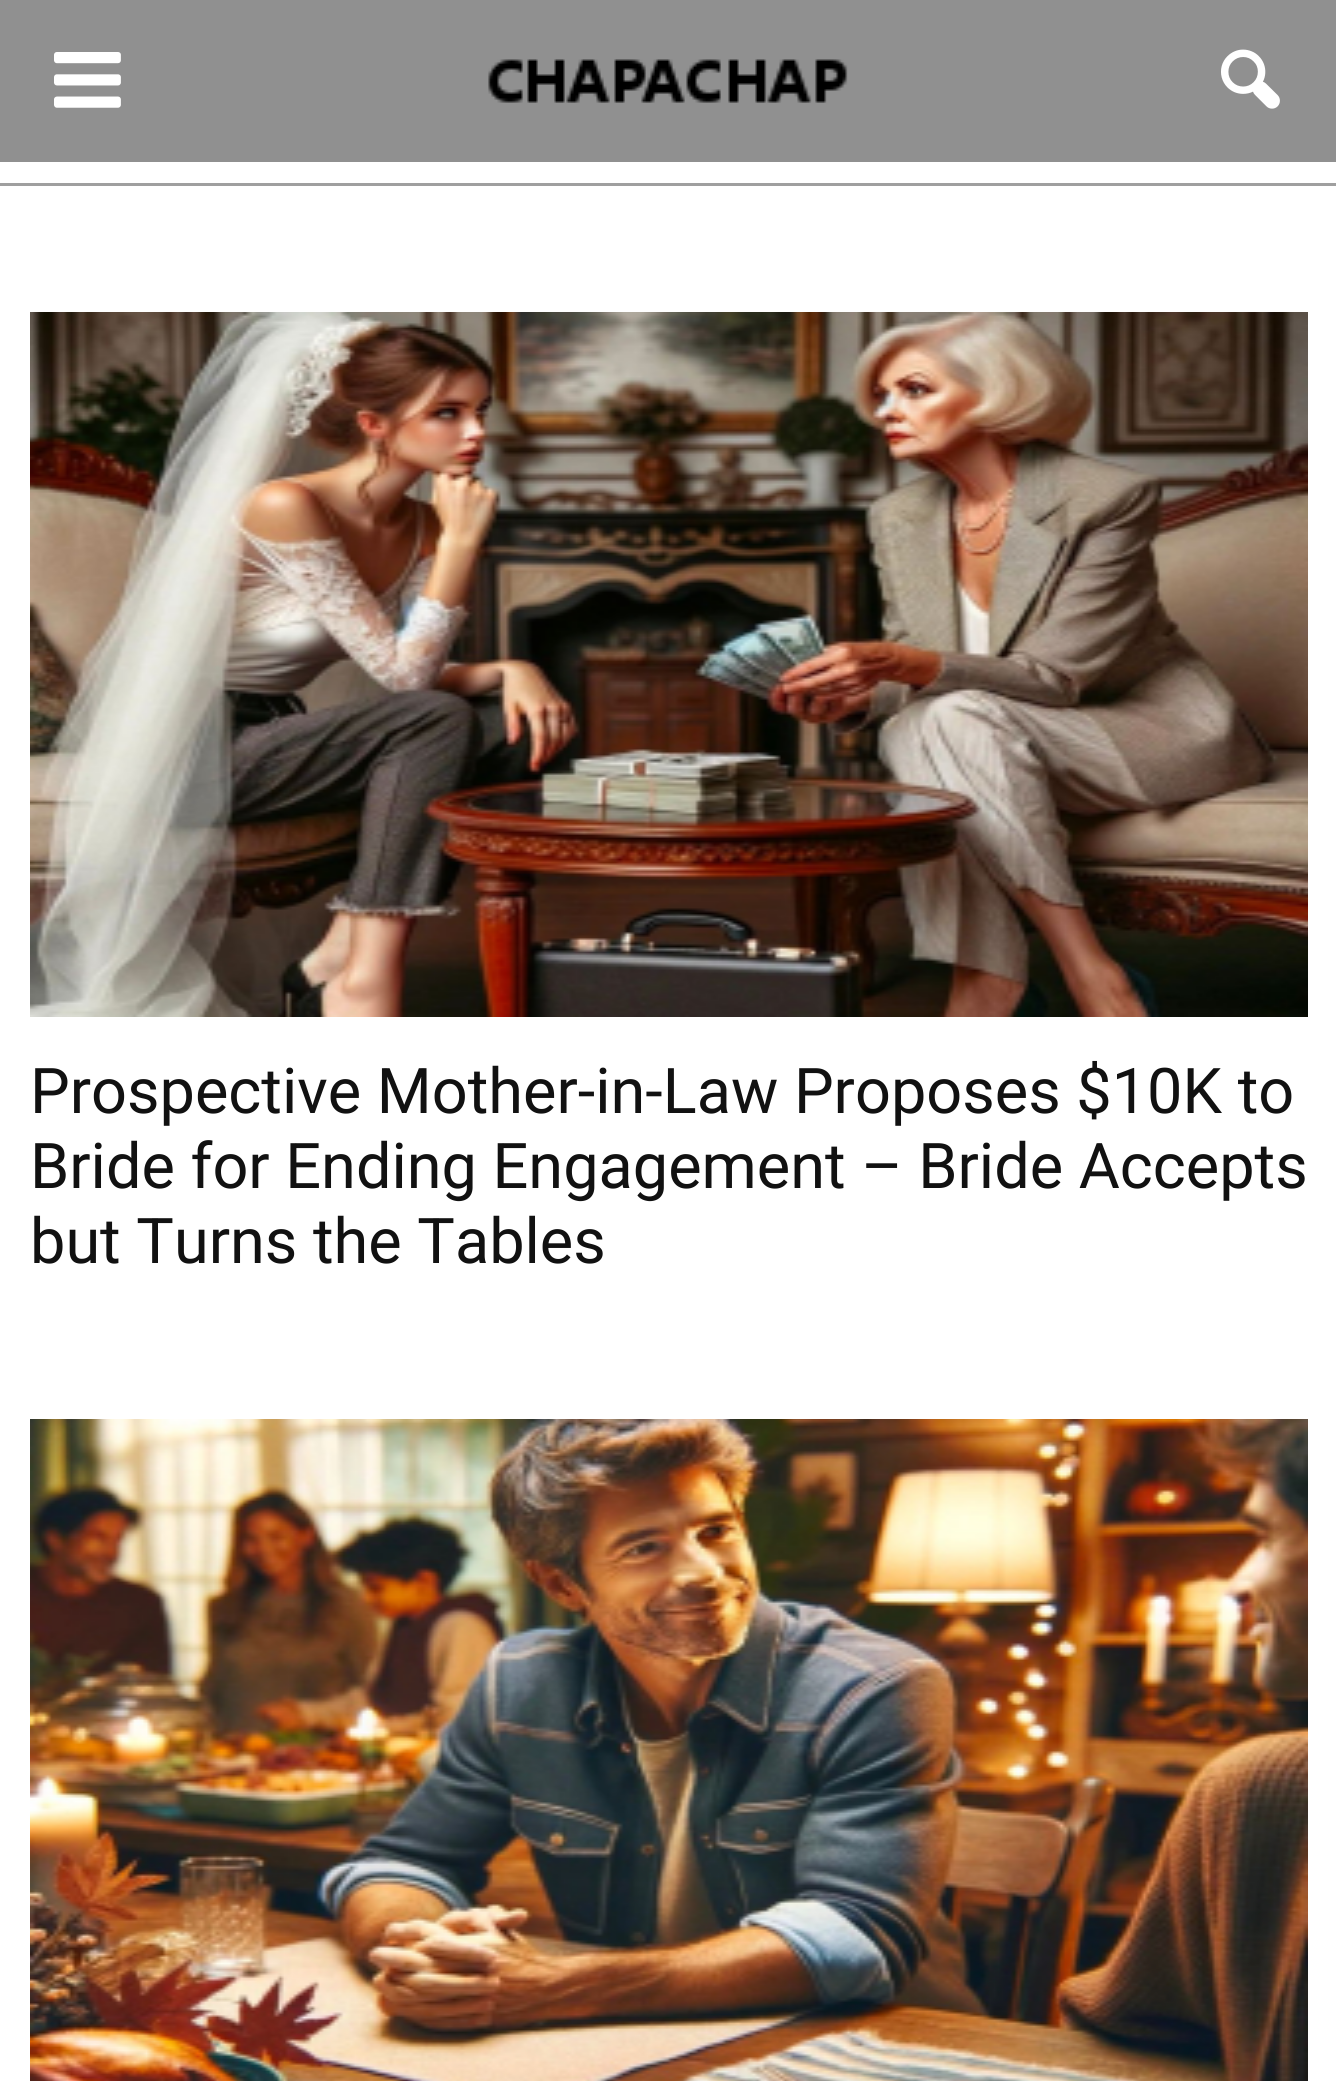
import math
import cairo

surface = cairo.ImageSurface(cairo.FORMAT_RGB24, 1336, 2081)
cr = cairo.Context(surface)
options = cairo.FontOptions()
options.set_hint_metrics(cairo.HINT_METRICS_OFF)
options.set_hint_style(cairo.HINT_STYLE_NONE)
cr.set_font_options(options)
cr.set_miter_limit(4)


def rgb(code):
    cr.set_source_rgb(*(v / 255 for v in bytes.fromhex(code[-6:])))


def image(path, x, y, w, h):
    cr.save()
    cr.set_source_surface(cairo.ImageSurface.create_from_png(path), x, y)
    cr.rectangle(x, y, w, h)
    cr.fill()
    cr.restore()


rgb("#ffffff")
cr.paint()
rgb("#909090")
cr.rectangle(0, 0, 1336, 162)
cr.fill()
image("img/1.png", 54, 52, 67, 56)
image("img/2.png", 488, 59, 360, 44)
image("img/3.png", 1221, 49, 59, 60)
rgb("#9f9f9f")
cr.rectangle(0, 183, 1336, 3)
cr.fill()
image("img/4.png", 30, 312, 1278, 705)
image("img/5.png", 30, 1419, 1278, 662)
cr.select_font_face("Roboto")
cr.set_font_size(63)
rgb("#111111")
for x, y, s in [
    (30, 1113, "Prospective Mother-in-Law Proposes $10K to"),
    (30, 1188, "Bride for Ending Engagement – Bride Accepts"),
    (30, 1263, "but Turns the Tables"),
]:
    cr.move_to(x, y)
    cr.show_text(s)
surface.write_to_png("page.png")
